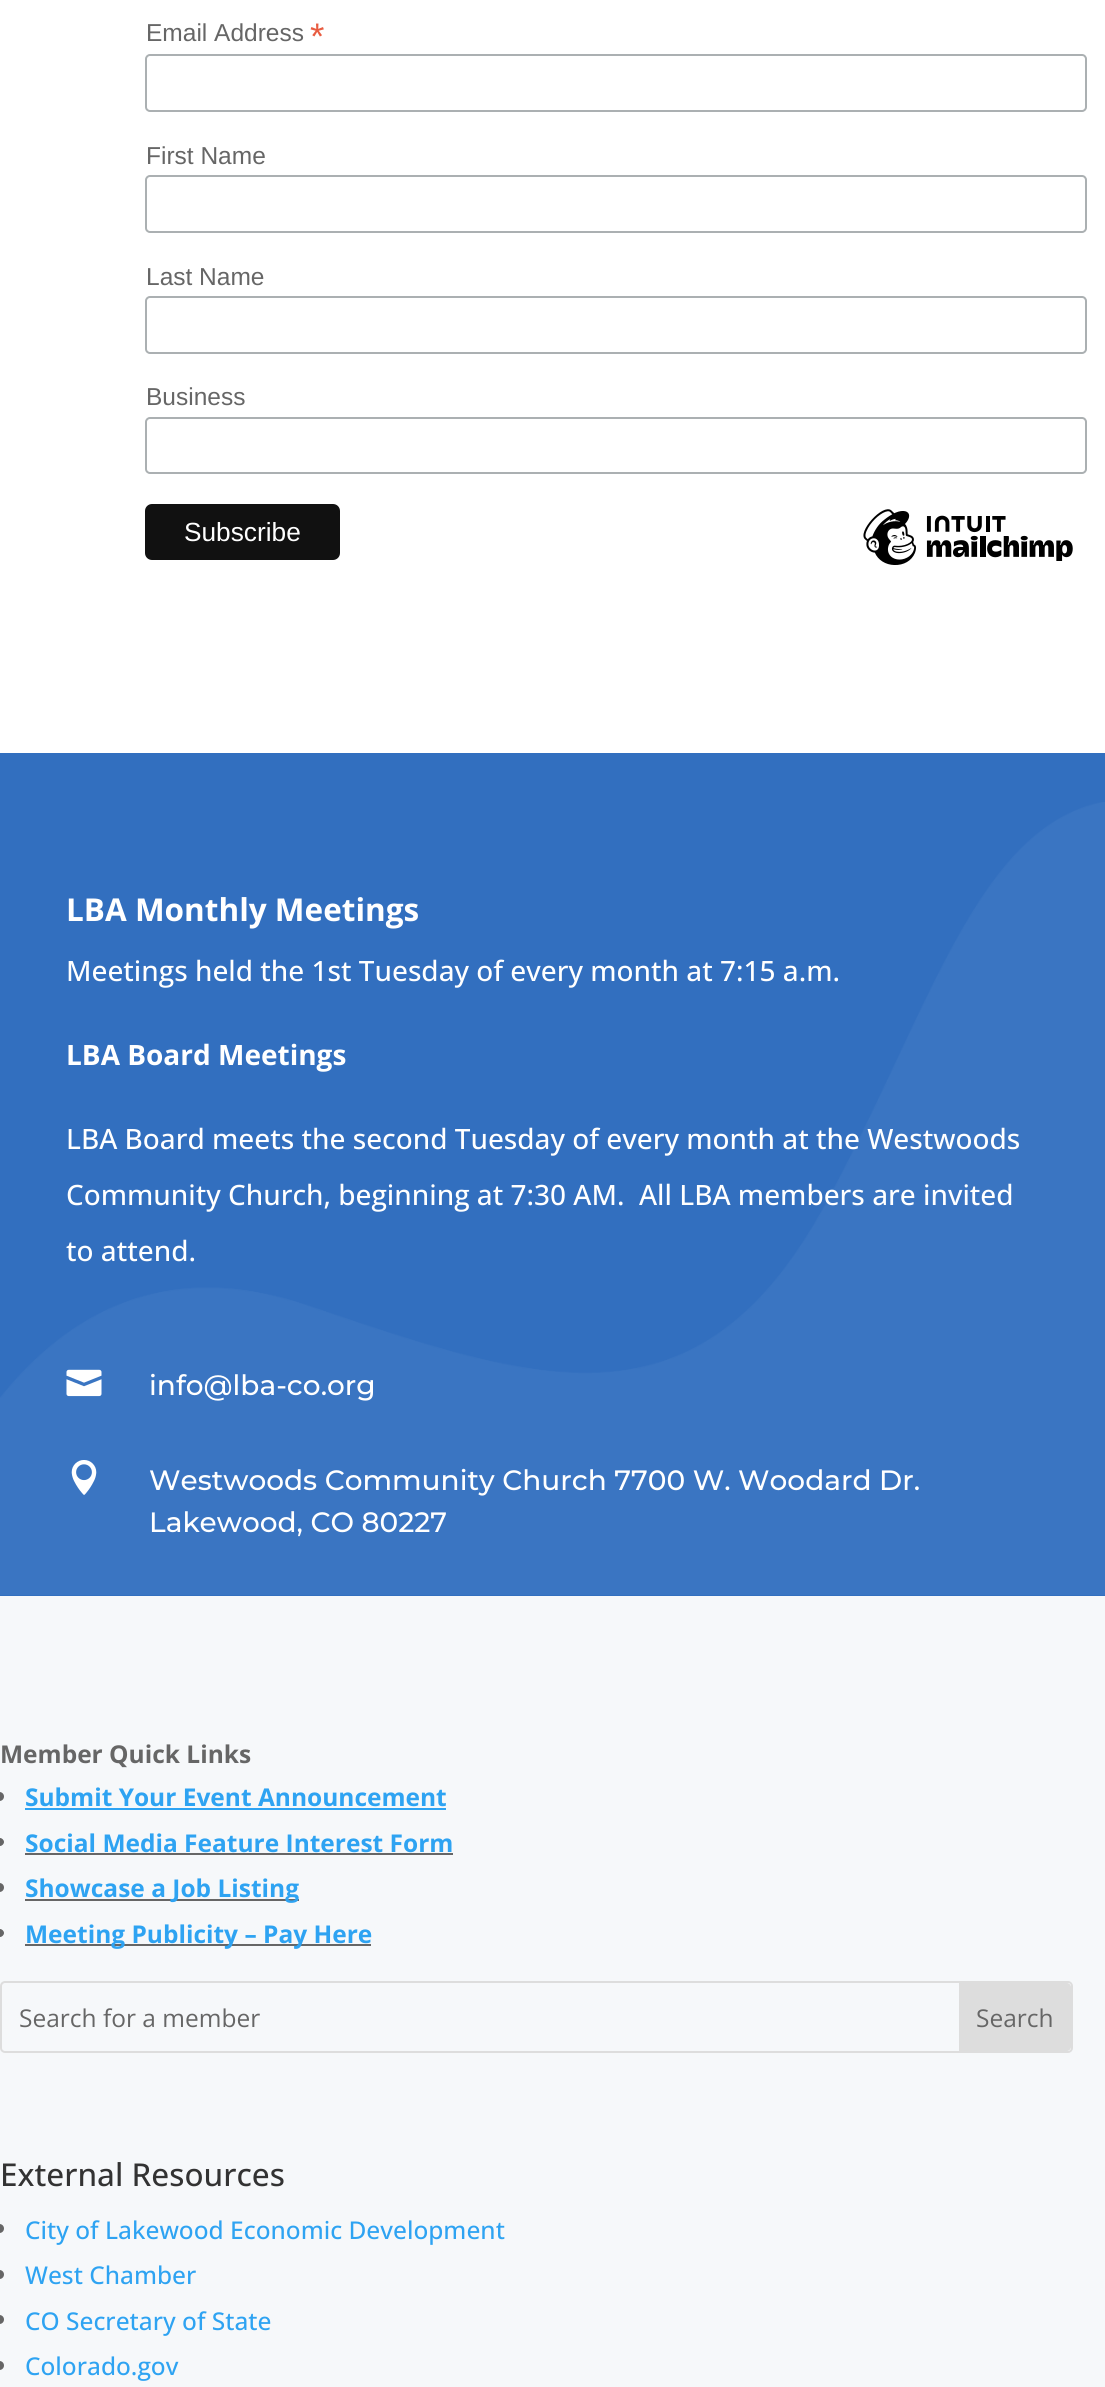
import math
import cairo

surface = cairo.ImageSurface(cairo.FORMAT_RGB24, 1105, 2387)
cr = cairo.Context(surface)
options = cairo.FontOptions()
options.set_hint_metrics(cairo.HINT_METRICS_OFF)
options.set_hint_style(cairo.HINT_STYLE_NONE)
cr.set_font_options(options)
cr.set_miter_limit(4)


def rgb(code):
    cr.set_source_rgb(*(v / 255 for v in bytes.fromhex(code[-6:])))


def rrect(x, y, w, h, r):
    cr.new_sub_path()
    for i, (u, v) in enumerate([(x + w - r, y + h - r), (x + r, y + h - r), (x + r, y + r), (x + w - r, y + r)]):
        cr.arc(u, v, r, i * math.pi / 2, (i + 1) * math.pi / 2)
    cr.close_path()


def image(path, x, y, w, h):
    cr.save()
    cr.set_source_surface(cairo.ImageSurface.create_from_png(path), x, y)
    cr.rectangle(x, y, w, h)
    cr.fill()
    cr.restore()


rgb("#ffffff")
cr.paint()
rrect(146, 55, 940, 56, 4)
rgb("#abb0b2")
cr.stroke()
rrect(146, 176, 940, 56, 4)
cr.stroke()
rrect(146, 297, 940, 56, 4)
cr.stroke()
rrect(146, 418, 940, 55, 4)
cr.stroke()
rgb("#111111")
rrect(145, 504, 195, 56, 7)
cr.fill()
image("img/1.png", 863, 509, 210, 56)
rgb("#f6f8fa")
cr.rectangle(0, 1596, 1105, 791)
cr.fill()
rgb("#326fbf")
cr.rectangle(0, 753, 1105, 843)
cr.fill()
image("img/2.png", 0, 802, 1105, 793)
image("img/3.png", 66, 1369, 36, 28)
image("img/4.png", 71, 1460, 26, 35)
rgb("#666666")
cr.new_path()
cr.move_to(0, 1792)
cr.line_to(-0.5, 1792)
cr.curve_to(2, 1792, 4, 1794, 4, 1796.5)
cr.curve_to(4, 1799, 2, 1801, -0.5, 1801)
cr.line_to(0, 1801)
cr.close_path()
cr.fill()
rgb("#2ea3f2")
cr.rectangle(25, 1808, 421, 2)
cr.fill()
rgb("#666666")
cr.new_path()
cr.move_to(0, 1838)
cr.curve_to(2, 1838, 4, 1840, 4, 1842)
cr.curve_to(4, 1844, 2, 1846, 0, 1846)
cr.close_path()
cr.fill()
cr.rectangle(25, 1853, 428, 2)
cr.fill()
cr.new_path()
cr.move_to(0, 1883)
cr.line_to(-0.5, 1883)
cr.curve_to(2, 1883, 4, 1885, 4, 1887.5)
cr.curve_to(4, 1890, 2, 1892, -0.5, 1892)
cr.line_to(0, 1892)
cr.close_path()
cr.fill()
cr.rectangle(25, 1899, 274, 2)
cr.fill()
cr.new_path()
cr.move_to(0, 1929)
cr.curve_to(2, 1929, 4, 1931, 4, 1933)
cr.curve_to(4, 1935, 2, 1937, 0, 1937)
cr.close_path()
cr.fill()
cr.rectangle(25, 1944, 346, 2)
cr.fill()
rrect(1, 1982, 1071, 70, 4)
rgb("#dddddd")
cr.stroke()
cr.new_path()
cr.move_to(959, 1983)
cr.line_to(1067, 1983)
cr.curve_to(1069, 1983, 1071, 1985, 1071, 1987)
cr.line_to(1071, 2047)
cr.curve_to(1071, 2049, 1069, 2051, 1067, 2051)
cr.line_to(959, 2051)
cr.close_path()
cr.fill()
rgb("#666666")
cr.new_path()
cr.move_to(0, 2224)
cr.line_to(-0.5, 2224)
cr.curve_to(2, 2224, 4, 2226, 4, 2228.5)
cr.curve_to(4, 2231, 2, 2233, -0.5, 2233)
cr.line_to(0, 2233)
cr.close_path()
cr.fill()
cr.new_path()
cr.move_to(0, 2270)
cr.line_to(-0.5, 2270)
cr.curve_to(2, 2270, 4, 2272, 4, 2274.5)
cr.curve_to(4, 2277, 2, 2279, -0.5, 2279)
cr.line_to(0, 2279)
cr.close_path()
cr.fill()
cr.new_path()
cr.move_to(0, 2315)
cr.line_to(-0.5, 2315)
cr.curve_to(2, 2315, 4, 2317, 4, 2319.5)
cr.curve_to(4, 2322, 2, 2324, -0.5, 2324)
cr.line_to(0, 2324)
cr.close_path()
cr.fill()
cr.new_path()
cr.move_to(0, 2361)
cr.line_to(-0.5, 2361)
cr.curve_to(2, 2361, 4, 2363, 4, 2365.5)
cr.curve_to(4, 2368, 2, 2370, -0.5, 2370)
cr.line_to(0, 2370)
cr.close_path()
cr.fill()
cr.select_font_face("Liberation Sans")
cr.set_font_size(24.5)
cr.move_to(146, 41)
cr.show_text("Email Address")
cr.set_font_size(37)
rgb("#e85c41")
cr.move_to(310, 49)
cr.show_text("*")
cr.set_font_size(24.5)
rgb("#666666")
for x, y, s in [
    (146, 164, "First Name"),
    (146, 285, "Last Name"),
    (146, 405, "Business"),
]:
    cr.move_to(x, y)
    cr.show_text(s)
cr.set_font_size(26.25)
rgb("#ffffff")
cr.move_to(184, 541)
cr.show_text("Subscribe")
cr.select_font_face("Open Sans", cairo.FONT_SLANT_NORMAL, cairo.FONT_WEIGHT_BOLD)
cr.set_font_size(31.5)
cr.move_to(66, 921)
cr.show_text("LBA Monthly Meetings")
cr.select_font_face("Open Sans Medium")
cr.set_font_size(28)
cr.move_to(66, 981)
cr.show_text("Meetings held the 1st Tuesday of every month at 7:15 a.m.")
cr.select_font_face("Open Sans", cairo.FONT_SLANT_NORMAL, cairo.FONT_WEIGHT_BOLD)
cr.move_to(66, 1065)
cr.show_text("LBA Board Meetings")
cr.select_font_face("Open Sans Medium")
for x, y, s in [
    (66, 1149, "LBA Board meets the second Tuesday of every month at the Westwoods"),
    (66, 1205, "Community Church, beginning at 7:30 AM.  All LBA members are invited"),
    (66, 1261, "to attend."),
]:
    cr.move_to(x, y)
    cr.show_text(s)
cr.select_font_face("Montserrat Thin")
for x, y, s in [
    (149, 1395, "info@lba-co.org"),
    (149, 1490, "Westwoods Community Church 7700 W. Woodard Dr."),
    (149, 1532, "Lakewood, CO 80227"),
]:
    cr.move_to(x, y)
    cr.show_text(s)
cr.select_font_face("Open Sans", cairo.FONT_SLANT_NORMAL, cairo.FONT_WEIGHT_BOLD)
cr.set_font_size(24.5)
rgb("#666666")
cr.move_to(0, 1763)
cr.show_text("Member Quick Links")
rgb("#2ea3f2")
for x, y, s in [
    (25, 1806, "Submit Your Event Announcement"),
    (25, 1852, "Social Media Feature Interest Form"),
    (25, 1897, "Showcase a Job Listing"),
    (25, 1943, "Meeting Publicity – Pay Here"),
]:
    cr.move_to(x, y)
    cr.show_text(s)
cr.select_font_face("Open Sans")
rgb("#666666")
cr.move_to(19, 2027)
cr.show_text("Search for a member")
cr.move_to(976, 2027)
cr.show_text("Search")
cr.select_font_face("Open Sans Medium")
cr.set_font_size(31.5)
rgb("#333333")
cr.move_to(0, 2186)
cr.show_text("External Resources")
cr.set_font_size(24.5)
rgb("#2ea3f2")
for x, y, s in [
    (25, 2239, "City of Lakewood Economic Development"),
    (25, 2284, "West Chamber"),
    (25, 2330, "CO Secretary of State"),
    (25, 2375, "Colorado.gov"),
]:
    cr.move_to(x, y)
    cr.show_text(s)
surface.write_to_png("page.png")
